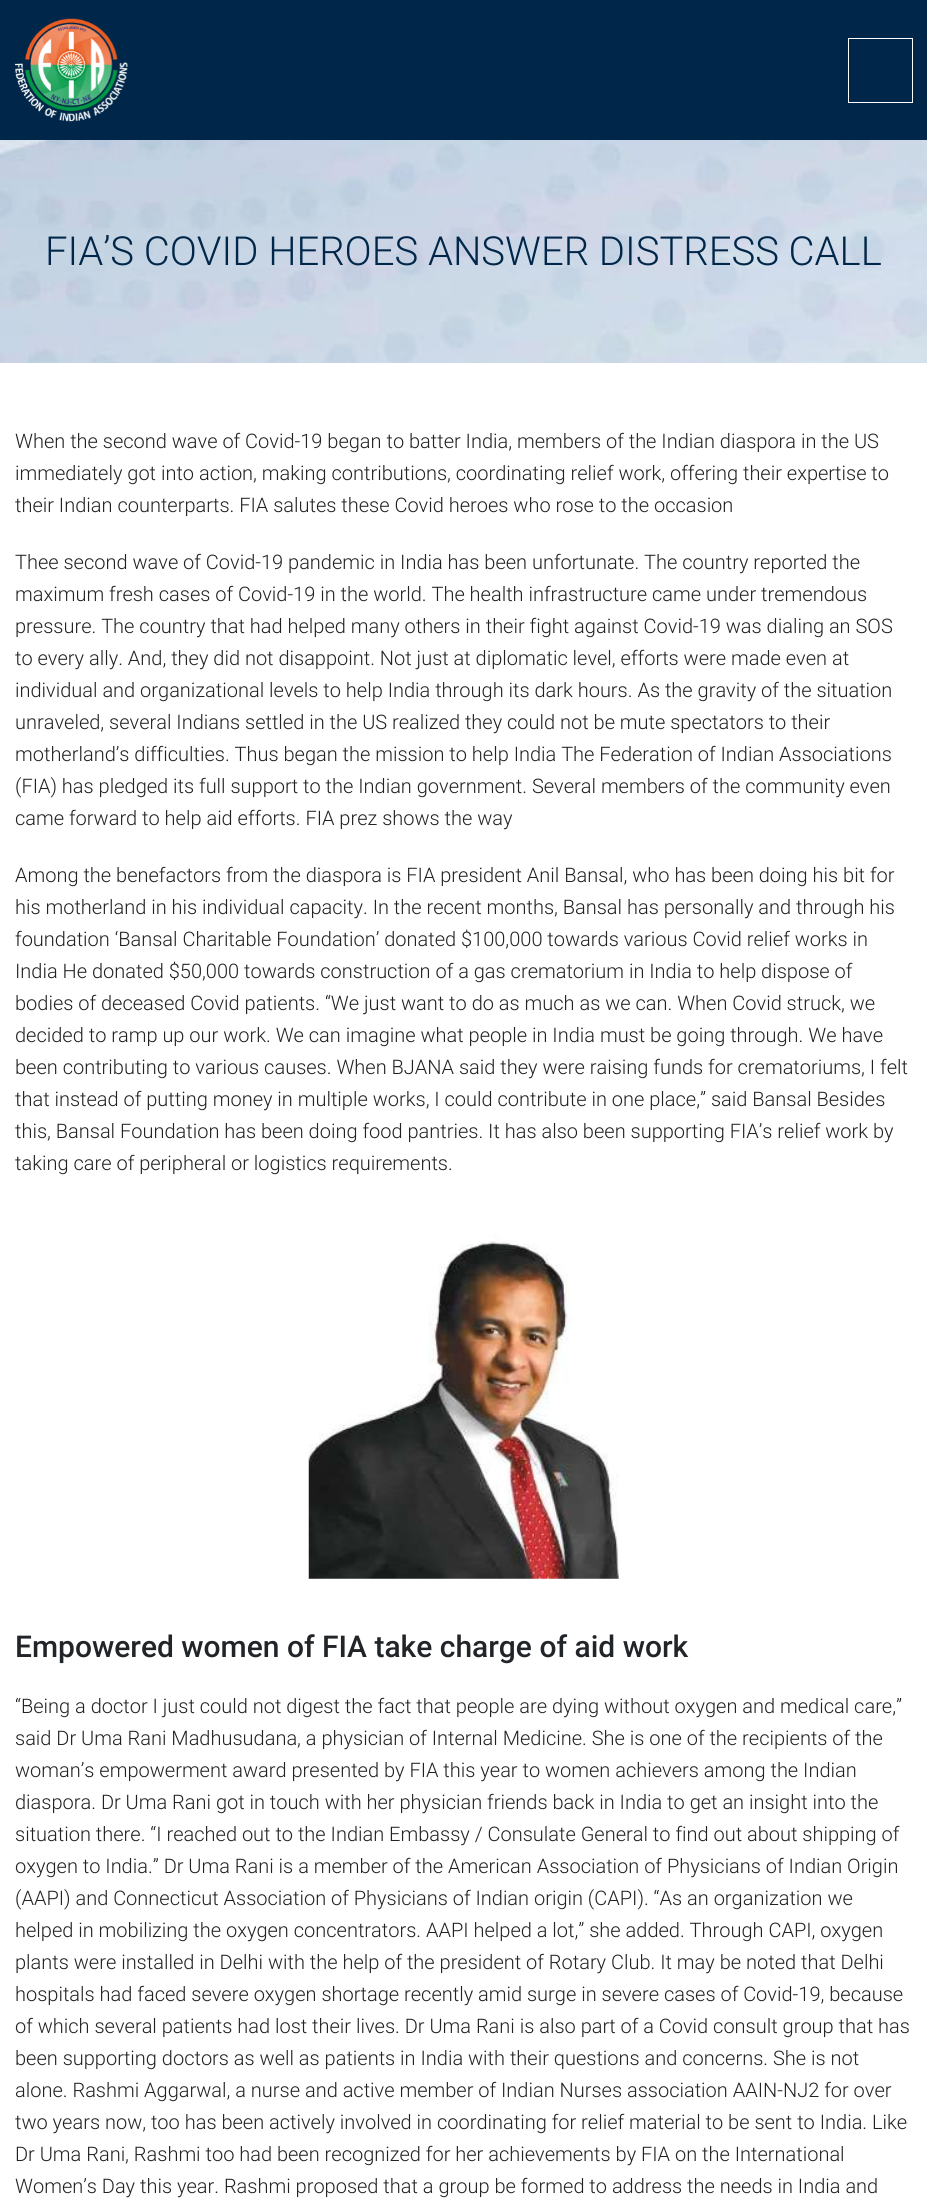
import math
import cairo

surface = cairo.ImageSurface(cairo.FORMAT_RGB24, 927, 2209)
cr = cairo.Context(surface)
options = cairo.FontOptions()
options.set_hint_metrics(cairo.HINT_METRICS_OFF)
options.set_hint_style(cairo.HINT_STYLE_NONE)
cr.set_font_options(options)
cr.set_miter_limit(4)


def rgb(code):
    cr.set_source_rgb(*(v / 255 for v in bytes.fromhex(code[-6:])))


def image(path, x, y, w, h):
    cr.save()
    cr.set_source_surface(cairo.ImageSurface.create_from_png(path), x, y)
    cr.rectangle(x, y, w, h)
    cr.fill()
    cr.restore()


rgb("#ffffff")
cr.paint()
rgb("#002749")
cr.rectangle(0, 0, 927, 140)
cr.fill()
image("img/1.png", 15, 18, 113, 104)
cr.rectangle(848.5, 38.5, 64, 64)
rgb("#ffffff")
cr.set_line_width(1)
cr.stroke()
image("img/2.png", 0, 140, 927, 223)
image("img/3.png", 308, 1234, 311, 345)
cr.select_font_face("Roboto Light")
cr.set_font_size(40)
rgb("#002749")
cr.move_to(45, 265)
cr.show_text("FIA’S COVID HEROES ANSWER DISTRESS CALL")
cr.set_font_size(20)
rgb("#222222")
for x, y, s in [
    (15, 448, "When the second wave of Covid-19 began to batter India, members of the Indian diaspora in the US"),
    (15, 480, "immediately got into action, making contributions, coordinating relief work, offering their expertise to"),
    (15, 512, "their Indian counterparts. FIA salutes these Covid heroes who rose to the occasion"),
    (15, 569, "Thee second wave of Covid-19 pandemic in India has been unfortunate. The country reported the"),
    (15, 601, "maximum fresh cases of Covid-19 in the world. The health infrastructure came under tremendous"),
    (15, 633, "pressure. The country that had helped many others in their fight against Covid-19 was dialing an SOS"),
    (15, 665, "to every ally. And, they did not disappoint. Not just at diplomatic level, efforts were made even at"),
    (15, 697, "individual and organizational levels to help India through its dark hours. As the gravity of the situation"),
    (15, 729, "unraveled, several Indians settled in the US realized they could not be mute spectators to their"),
    (15, 761, "motherland’s difficulties. Thus began the mission to help India The Federation of Indian Associations"),
    (15, 793, "(FIA) has pledged its full support to the Indian government. Several members of the community even"),
    (15, 825, "came forward to help aid efforts. FIA prez shows the way"),
    (15, 882, "Among the benefactors from the diaspora is FIA president Anil Bansal, who has been doing his bit for"),
    (15, 914, "his motherland in his individual capacity. In the recent months, Bansal has personally and through his"),
    (15, 946, "foundation ‘Bansal Charitable Foundation’ donated $100,000 towards various Covid relief works in"),
    (15, 978, "India He donated $50,000 towards construction of a gas crematorium in India to help dispose of"),
    (15, 1010, "bodies of deceased Covid patients. “We just want to do as much as we can. When Covid struck, we"),
    (15, 1042, "decided to ramp up our work. We can imagine what people in India must be going through. We have"),
    (15, 1074, "been contributing to various causes. When BJANA said they were raising funds for crematoriums, I felt"),
    (15, 1106, "that instead of putting money in multiple works, I could contribute in one place,” said Bansal Besides"),
    (15, 1138, "this, Bansal Foundation has been doing food pantries. It has also been supporting FIA’s relief work by"),
    (15, 1170, "taking care of peripheral or logistics requirements."),
]:
    cr.move_to(x, y)
    cr.show_text(s)
cr.select_font_face("Roboto Medium")
cr.set_font_size(30)
rgb("#212529")
cr.move_to(15, 1657)
cr.show_text("Empowered women of FIA take charge of aid work")
cr.select_font_face("Roboto Light")
cr.set_font_size(20)
rgb("#222222")
for x, y, s in [
    (15, 1713, "“Being a doctor I just could not digest the fact that people are dying without oxygen and medical care,”"),
    (15, 1745, "said Dr Uma Rani Madhusudana, a physician of Internal Medicine. She is one of the recipients of the"),
    (15, 1777, "woman’s empowerment award presented by FIA this year to women achievers among the Indian"),
    (15, 1809, "diaspora. Dr Uma Rani got in touch with her physician friends back in India to get an insight into the"),
    (15, 1841, "situation there. “I reached out to the Indian Embassy / Consulate General to find out about shipping of"),
    (15, 1873, "oxygen to India.” Dr Uma Rani is a member of the American Association of Physicians of Indian Origin"),
    (15, 1905, "(AAPI) and Connecticut Association of Physicians of Indian origin (CAPI). “As an organization we"),
    (15, 1937, "helped in mobilizing the oxygen concentrators. AAPI helped a lot,” she added. Through CAPI, oxygen"),
    (15, 1969, "plants were installed in Delhi with the help of the president of Rotary Club. It may be noted that Delhi"),
    (15, 2001, "hospitals had faced severe oxygen shortage recently amid surge in severe cases of Covid-19, because"),
    (15, 2033, "of which several patients had lost their lives. Dr Uma Rani is also part of a Covid consult group that has"),
    (15, 2065, "been supporting doctors as well as patients in India with their questions and concerns. She is not"),
    (15, 2097, "alone. Rashmi Aggarwal, a nurse and active member of Indian Nurses association AAIN-NJ2 for over"),
    (15, 2129, "two years now, too has been actively involved in coordinating for relief material to be sent to India. Like"),
    (15, 2161, "Dr Uma Rani, Rashmi too had been recognized for her achievements by FIA on the International"),
    (15, 2193, "Women’s Day this year. Rashmi proposed that a group be formed to address the needs in India and"),
]:
    cr.move_to(x, y)
    cr.show_text(s)
surface.write_to_png("page.png")
